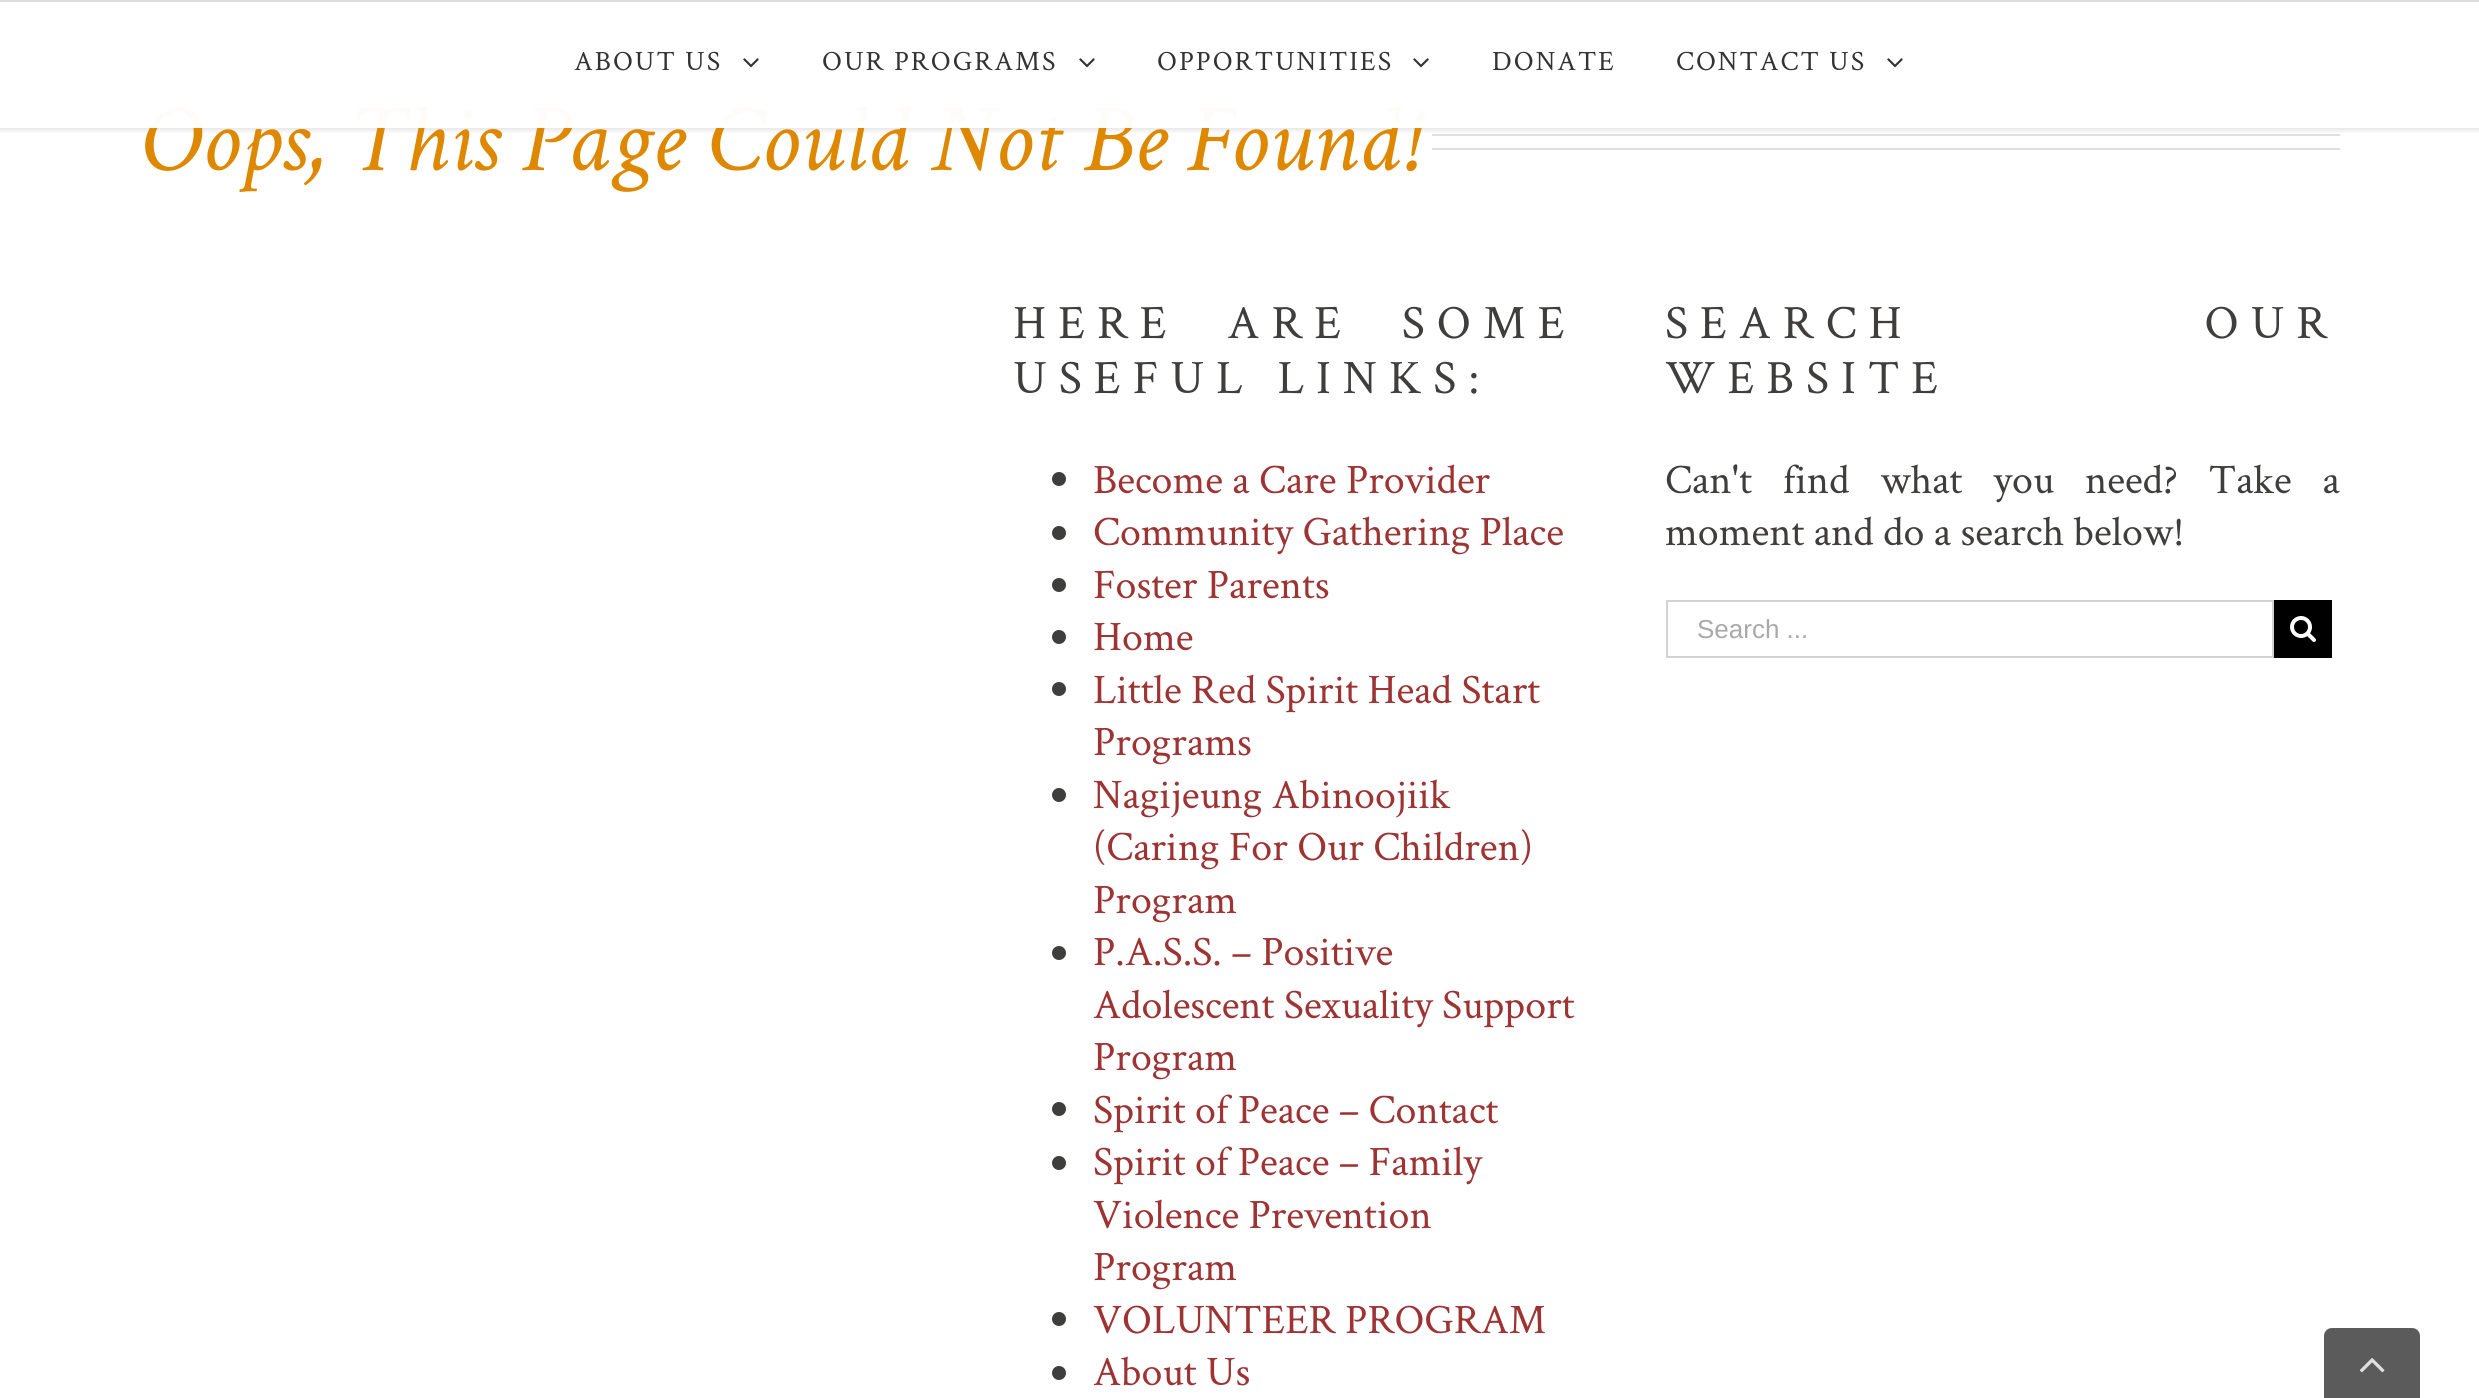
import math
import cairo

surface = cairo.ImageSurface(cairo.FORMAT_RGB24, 2479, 1398)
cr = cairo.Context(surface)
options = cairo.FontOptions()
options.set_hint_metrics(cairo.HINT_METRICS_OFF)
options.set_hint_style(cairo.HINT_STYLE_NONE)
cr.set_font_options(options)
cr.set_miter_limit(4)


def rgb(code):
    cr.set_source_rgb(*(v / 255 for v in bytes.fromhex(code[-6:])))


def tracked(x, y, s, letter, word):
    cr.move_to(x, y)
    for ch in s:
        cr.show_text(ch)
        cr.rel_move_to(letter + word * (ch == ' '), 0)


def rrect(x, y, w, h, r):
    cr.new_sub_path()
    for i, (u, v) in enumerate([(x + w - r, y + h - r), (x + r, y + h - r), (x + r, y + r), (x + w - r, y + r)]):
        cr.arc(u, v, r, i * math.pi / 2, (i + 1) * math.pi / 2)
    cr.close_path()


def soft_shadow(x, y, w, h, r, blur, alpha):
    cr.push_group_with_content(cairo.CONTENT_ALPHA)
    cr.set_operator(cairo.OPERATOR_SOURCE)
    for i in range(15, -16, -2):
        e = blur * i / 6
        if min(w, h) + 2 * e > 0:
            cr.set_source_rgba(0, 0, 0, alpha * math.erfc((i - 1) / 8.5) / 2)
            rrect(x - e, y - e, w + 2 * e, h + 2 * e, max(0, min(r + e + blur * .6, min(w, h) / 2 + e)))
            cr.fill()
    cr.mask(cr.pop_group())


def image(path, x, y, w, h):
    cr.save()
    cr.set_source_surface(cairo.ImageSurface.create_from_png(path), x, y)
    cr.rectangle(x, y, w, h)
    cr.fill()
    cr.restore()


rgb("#ffffff")
cr.paint()
rgb("#e0dede")
cr.rectangle(1432, 134, 908, 2)
cr.fill()
cr.save()
cr.rectangle(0, 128, 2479, 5)
cr.clip()
rgb("#000000")
soft_shadow(0, 2, 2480, 128, 0, 3, 0.12)
cr.restore()
rgb("#dddddd")
cr.rectangle(0, 0, 2479, 2)
cr.fill()
image("img/1.png", 743, 58, 16, 10)
image("img/1.png", 1079, 58, 16, 10)
image("img/1.png", 1413, 58, 16, 10)
image("img/1.png", 1887, 58, 16, 10)
rgb("#e0dede")
cr.rectangle(1432, 148, 908, 2)
cr.fill()
rgb("#3f3e3d")
cr.arc(1059, 479, 7, 0, 2 * math.pi)
cr.fill()
cr.arc(1059, 533, 7, 0, 2 * math.pi)
cr.fill()
cr.arc(1059, 585, 7, 0, 2 * math.pi)
cr.fill()
cr.arc(1059, 637, 7, 0, 2 * math.pi)
cr.fill()
cr.arc(1059, 689, 7, 0, 2 * math.pi)
cr.fill()
cr.arc(1059, 795, 7, 0, 2 * math.pi)
cr.fill()
cr.arc(1059, 953, 7, 0, 2 * math.pi)
cr.fill()
cr.arc(1059, 1109, 7, 0, 2 * math.pi)
cr.fill()
cr.arc(1059, 1163, 7, 0, 2 * math.pi)
cr.fill()
cr.arc(1059, 1319, 7, 0, 2 * math.pi)
cr.fill()
cr.arc(1059, 1373, 7, 0, 2 * math.pi)
cr.fill()
cr.rectangle(1667, 601, 606, 56)
rgb("#d2d2d2")
cr.stroke()
rgb("#000000")
cr.rectangle(2274, 600, 58, 58)
cr.fill()
image("img/2.png", 2290, 616, 26, 26)
rgb("#5b5b5b")
cr.new_path()
cr.move_to(2332, 1328)
cr.line_to(2412, 1328)
cr.curve_to(2416.5, 1328, 2420, 1331.5, 2420, 1336)
cr.line_to(2420, 1398)
cr.line_to(2324, 1398)
cr.line_to(2324, 1336)
cr.curve_to(2324, 1331.5, 2327.5, 1328, 2332, 1328)
cr.close_path()
cr.fill()
image("img/3.png", 2360, 1358, 25, 15)
cr.select_font_face("Crimson Text")
cr.set_font_size(28)
rgb("#333333")
for x, y, s in [
    (574, 70, "ABOUT US"),
    (822, 70, "OUR PROGRAMS"),
    (1157, 70, "OPPORTUNITIES"),
    (1492, 70, "DONATE"),
    (1676, 70, "CONTACT US"),
]:
    tracked(x, y, s, 2, 0)
cr.select_font_face("Crimson Text", cairo.FONT_SLANT_ITALIC)
cr.set_font_size(96)
rgb("#de8800")
cr.move_to(140, 170)
cr.show_text("Oops, This Page Could Not Be Found!")
cr.set_source_rgba(1, 1, 1, 0.97)
cr.rectangle(149, 105, 1276, 23)
cr.fill()
rgb("#ffffff")
cr.rectangle(1202, 122, 221, 6)
cr.rectangle(858, 122, 198, 6)
cr.rectangle(716, 122, 12, 6)
cr.fill()
cr.select_font_face("Crimson Text")
cr.set_font_size(48)
rgb("#3f3e3d")
tracked(1013, 338, "HERE ARE SOME", 12, 26)
tracked(1013, 393, "USEFUL LINKS:", 12, 0)
cr.set_font_size(42)
rgb("#9d3433")
for x, y, s in [
    (1093, 493, "Become a Care Provider"),
    (1093, 545, "Community Gathering Place"),
    (1093, 598, "Foster Parents"),
    (1093, 650, "Home"),
    (1093, 703, "Little Red Spirit Head Start"),
    (1093, 755, "Programs"),
    (1093, 808, "Nagijeung Abinoojiik"),
    (1093, 860, "(Caring For Our Children)"),
    (1093, 913, "Program"),
    (1093, 965, "P.A.S.S. – Positive"),
    (1093, 1018, "Adolescent Sexuality Support"),
    (1093, 1070, "Program"),
    (1093, 1123, "Spirit of Peace – Contact"),
    (1093, 1175, "Spirit of Peace – Family"),
    (1093, 1228, "Violence Prevention"),
    (1093, 1280, "Program"),
    (1093, 1333, "VOLUNTEER PROGRAM"),
    (1093, 1385, "About Us"),
]:
    cr.move_to(x, y)
    cr.show_text(s)
cr.set_font_size(48)
rgb("#3f3e3d")
tracked(1665, 338, "SEARCH OUR", 12, 268)
tracked(1665, 393, "WEBSITE", 12, 0)
cr.set_font_size(42)
tracked(1665, 493, "Can't find what you need? Take a", 0, 21.5)
cr.move_to(1665, 545)
cr.show_text("moment and do a search below!")
cr.select_font_face("Liberation Sans")
cr.set_font_size(26)
rgb("#aaa9a9")
cr.move_to(1697, 638)
cr.show_text("Search ...")
surface.write_to_png("page.png")
